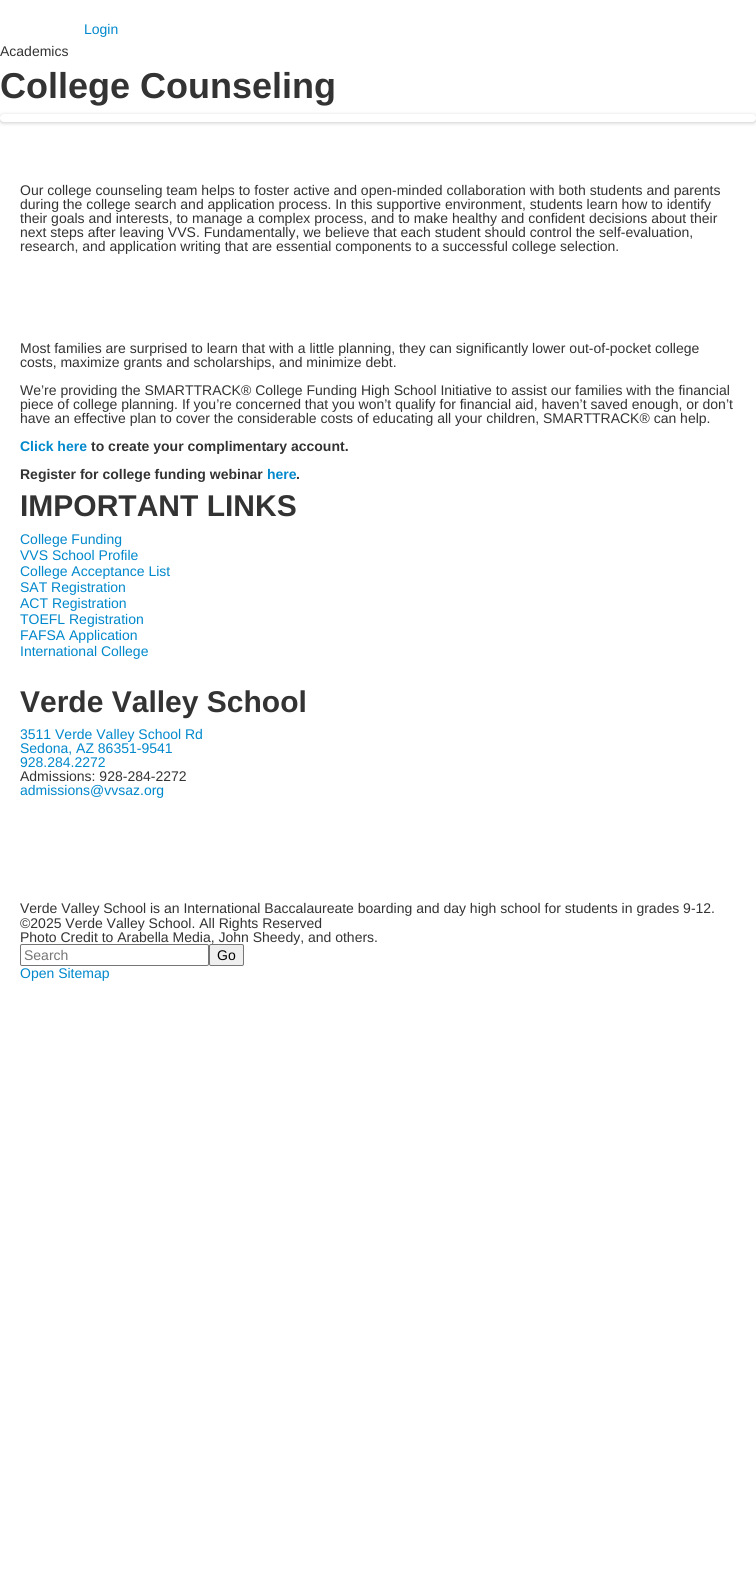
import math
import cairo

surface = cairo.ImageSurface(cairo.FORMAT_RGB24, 756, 1596)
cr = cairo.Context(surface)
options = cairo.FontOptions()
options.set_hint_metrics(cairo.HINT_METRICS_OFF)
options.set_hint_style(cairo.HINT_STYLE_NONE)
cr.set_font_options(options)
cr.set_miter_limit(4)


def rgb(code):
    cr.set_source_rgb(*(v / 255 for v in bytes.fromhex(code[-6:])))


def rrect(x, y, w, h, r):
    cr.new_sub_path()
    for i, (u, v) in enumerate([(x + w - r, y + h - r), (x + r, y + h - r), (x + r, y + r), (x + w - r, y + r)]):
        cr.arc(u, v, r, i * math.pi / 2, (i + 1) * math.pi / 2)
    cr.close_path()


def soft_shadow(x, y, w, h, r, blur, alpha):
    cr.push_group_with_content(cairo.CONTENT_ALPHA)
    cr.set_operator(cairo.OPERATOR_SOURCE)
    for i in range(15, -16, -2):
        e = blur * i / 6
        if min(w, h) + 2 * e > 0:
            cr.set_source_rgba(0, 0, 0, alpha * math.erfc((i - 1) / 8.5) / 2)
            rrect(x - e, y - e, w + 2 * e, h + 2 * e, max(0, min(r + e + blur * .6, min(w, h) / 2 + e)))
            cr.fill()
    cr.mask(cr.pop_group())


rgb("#ffffff")
cr.paint()
rgb("#000000")
soft_shadow(0, 115, 756, 8, 4, 2, 0.2)
rgb("#ffffff")
rrect(0, 114, 756, 8, 4)
cr.fill()
cr.select_font_face("Liberation Sans")
cr.set_font_size(14)
rgb("#0088cc")
cr.move_to(84, 34)
cr.show_text("Login")
rgb("#333333")
cr.move_to(0, 56)
cr.show_text("Academics")
cr.select_font_face("Liberation Sans", cairo.FONT_SLANT_NORMAL, cairo.FONT_WEIGHT_BOLD)
cr.set_font_size(36)
cr.move_to(0, 98)
cr.show_text("College Counseling")
cr.select_font_face("Liberation Sans")
cr.set_font_size(14)
for x, y, s in [
    (20, 195, "Our college counseling team helps to foster active and open-minded collaboration with both students and parents"),
    (20, 209, "during the college search and application process. In this supportive environment, students learn how to identify"),
    (20, 223, "their goals and interests, to manage a complex process, and to make healthy and confident decisions about their"),
    (20, 237, "next steps after leaving VVS. Fundamentally, we believe that each student should control the self-evaluation,"),
    (20, 251, "research, and application writing that are essential components to a successful college selection."),
    (20, 353, "Most families are surprised to learn that with a little planning, they can significantly lower out-of-pocket college"),
    (20, 367, "costs, maximize grants and scholarships, and minimize debt."),
    (20, 395, "We’re providing the SMARTTRACK® College Funding High School Initiative to assist our families with the financial"),
    (20, 409, "piece of college planning. If you’re concerned that you won’t qualify for financial aid, haven’t saved enough, or don’t"),
    (20, 423, "have an effective plan to cover the considerable costs of educating all your children, SMARTTRACK® can help."),
]:
    cr.move_to(x, y)
    cr.show_text(s)
cr.select_font_face("Liberation Sans", cairo.FONT_SLANT_NORMAL, cairo.FONT_WEIGHT_BOLD)
rgb("#0088cc")
cr.move_to(20, 451)
cr.show_text("Click here")
rgb("#333333")
cr.move_to(91, 451)
cr.show_text("to create your complimentary account.")
cr.move_to(20, 479)
cr.show_text("Register for college funding webinar")
rgb("#0088cc")
cr.move_to(267, 479)
cr.show_text("here")
rgb("#333333")
cr.move_to(296, 479)
cr.show_text(".")
cr.set_font_size(30)
cr.move_to(20, 516)
cr.show_text("IMPORTANT LINKS")
cr.select_font_face("Liberation Sans")
cr.set_font_size(14)
rgb("#0088cc")
for x, y, s in [
    (20, 544, "College Funding"),
    (20, 560, "VVS School Profile"),
    (20, 576, "College Acceptance List"),
    (20, 592, "SAT Registration"),
    (20, 608, "ACT Registration"),
    (20, 624, "TOEFL Registration"),
    (20, 640, "FAFSA Application"),
    (20, 656, "International College"),
]:
    cr.move_to(x, y)
    cr.show_text(s)
cr.select_font_face("Liberation Sans", cairo.FONT_SLANT_NORMAL, cairo.FONT_WEIGHT_BOLD)
cr.set_font_size(30)
rgb("#333333")
cr.move_to(20, 712)
cr.show_text("Verde Valley School")
cr.select_font_face("Liberation Sans")
cr.set_font_size(14)
rgb("#0088cc")
for x, y, s in [
    (20, 739, "3511 Verde Valley School Rd"),
    (20, 753, "Sedona, AZ 86351-9541"),
    (20, 767, "928.284.2272"),
]:
    cr.move_to(x, y)
    cr.show_text(s)
rgb("#333333")
cr.move_to(20, 781)
cr.show_text("Admissions: 928-284-2272")
rgb("#0088cc")
cr.move_to(20, 795)
cr.show_text("admissions@vvsaz.org")
rgb("#333333")
for x, y, s in [
    (20, 913, "Verde Valley School is an International Baccalaureate boarding and day high school for students in grades 9-12."),
    (20, 928, "©2025 Verde Valley School. All Rights Reserved"),
    (20, 942, "Photo Credit to Arabella Media, John Sheedy, and others."),
]:
    cr.move_to(x, y)
    cr.show_text(s)
rrect(20.5, 944.5, 188, 21, 1.5)
rgb("#767676")
cr.set_line_width(1)
cr.stroke()
rgb("#757575")
cr.move_to(24, 960)
cr.show_text("Search")
rgb("#efefef")
rrect(209.5, 944.5, 34, 21, 1.5)
cr.fill_preserve()
rgb("#767676")
cr.stroke()
rgb("#000000")
cr.move_to(217, 960)
cr.show_text("Go")
rgb("#0088cc")
cr.move_to(20, 978)
cr.show_text("Open Sitemap")
surface.write_to_png("page.png")
